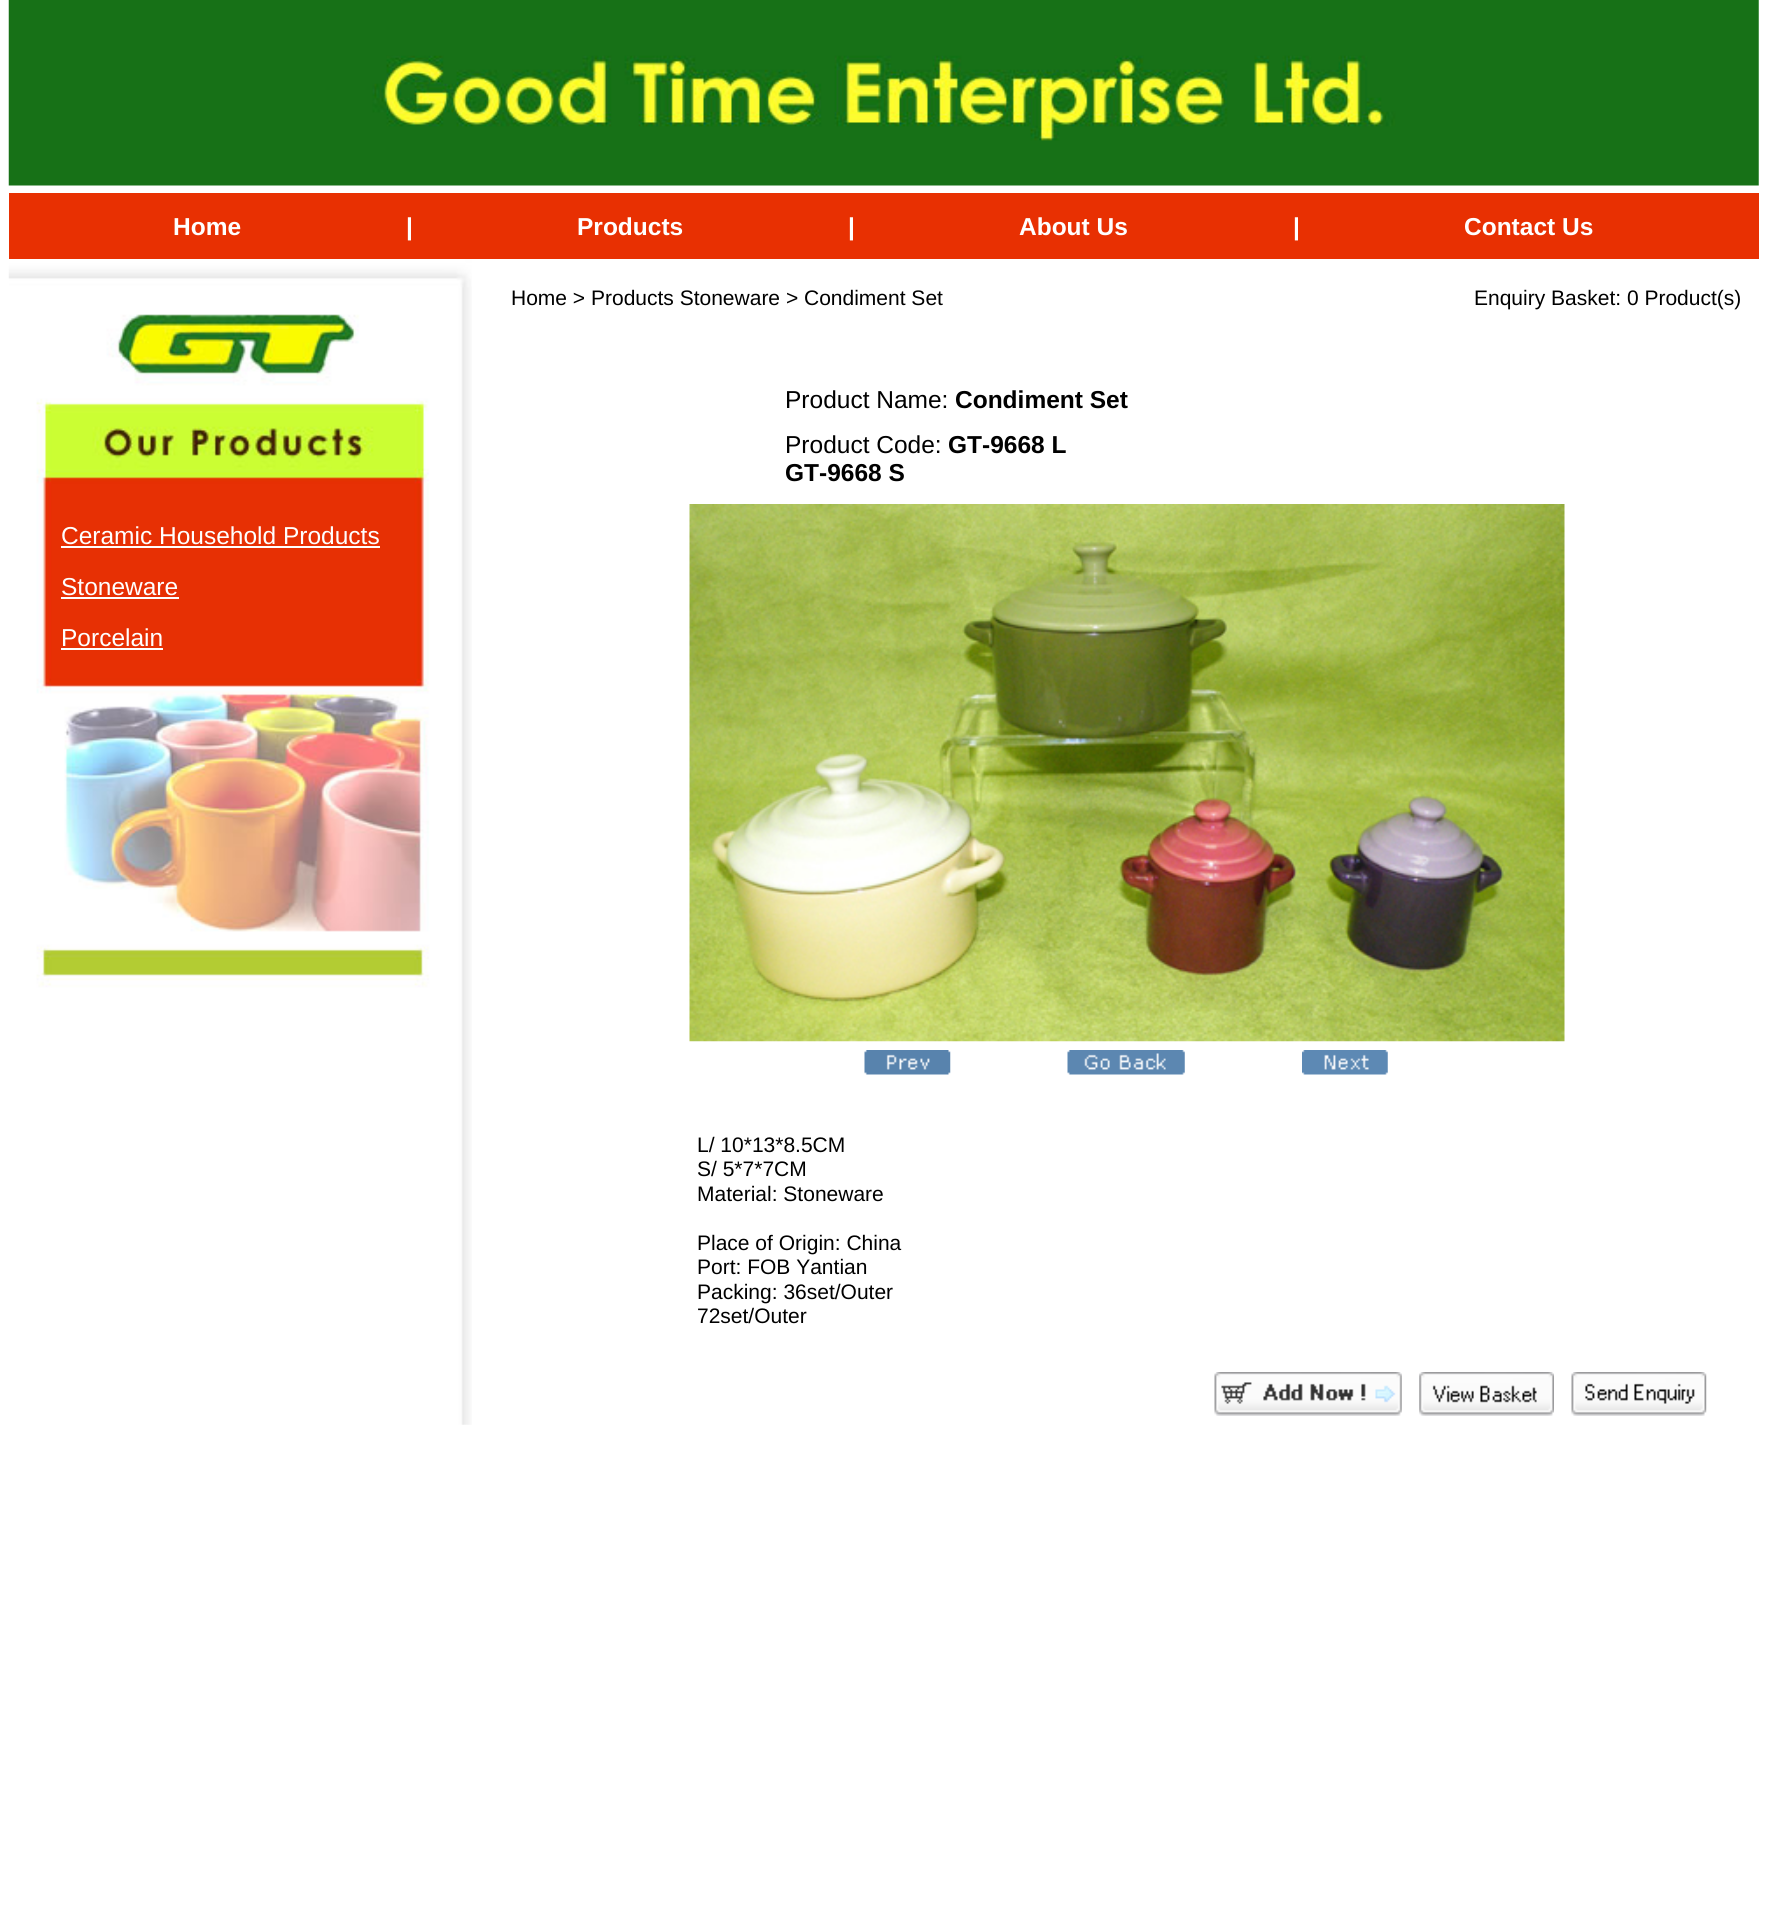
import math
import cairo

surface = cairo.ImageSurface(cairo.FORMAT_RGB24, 1766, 1916)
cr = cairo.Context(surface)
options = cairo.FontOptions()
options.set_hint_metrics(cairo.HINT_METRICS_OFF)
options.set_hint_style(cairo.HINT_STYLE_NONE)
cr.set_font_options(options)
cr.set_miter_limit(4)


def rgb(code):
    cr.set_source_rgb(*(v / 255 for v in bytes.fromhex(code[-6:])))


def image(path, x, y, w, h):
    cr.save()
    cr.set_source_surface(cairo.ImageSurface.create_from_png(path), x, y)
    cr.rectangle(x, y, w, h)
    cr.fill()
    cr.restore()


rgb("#ffffff")
cr.paint()
image("img/1.png", 8, 0, 1751, 186)
rgb("#e83002")
cr.rectangle(9, 193, 1750, 66)
cr.fill()
image("img/2.png", 461, 1424, 11, 1)
image("img/3.png", 8, 259, 464, 1166)
for x, y, w, h, color in [
    (61, 546, 319, 2, "#ffffff"),
    (61, 597, 118, 2, "#ffffff"),
    (61, 648, 102, 2, "#ffffff"),
]:
    rgb(color)
    cr.rectangle(x, y, w, h)
    cr.fill()
image("img/4.png", 689, 504, 876, 538)
image("img/5.png", 864, 1050, 87, 25)
image("img/6.png", 1067, 1050, 118, 25)
image("img/7.png", 1302, 1050, 86, 25)
image("img/8.png", 1214, 1372, 188, 44)
image("img/9.png", 1419, 1372, 135, 44)
image("img/10.png", 1571, 1372, 136, 44)
cr.select_font_face("Liberation Sans", cairo.FONT_SLANT_NORMAL, cairo.FONT_WEIGHT_BOLD)
cr.set_font_size(24.5)
for x, y, s in [
    (173, 235, "Home"),
    (406, 235, "|"),
    (577, 235, "Products"),
    (848, 235, "|"),
    (1019, 235, "About Us"),
    (1293, 235, "|"),
    (1464, 235, "Contact Us"),
]:
    cr.move_to(x, y)
    cr.show_text(s)
cr.select_font_face("Liberation Sans")
for x, y, s in [
    (61, 544, "Ceramic Household Products"),
    (61, 595, "Stoneware"),
    (61, 646, "Porcelain"),
]:
    cr.move_to(x, y)
    cr.show_text(s)
cr.set_font_size(21)
rgb("#000000")
cr.move_to(511, 305)
cr.show_text("Home > Products Stoneware > Condiment Set")
cr.move_to(1474, 305)
cr.show_text("Enquiry Basket: 0 Product(s)")
cr.set_font_size(24.5)
cr.move_to(785, 408)
cr.show_text("Product Name:")
cr.select_font_face("Liberation Sans", cairo.FONT_SLANT_NORMAL, cairo.FONT_WEIGHT_BOLD)
cr.move_to(955, 408)
cr.show_text("Condiment Set")
cr.select_font_face("Liberation Sans")
cr.move_to(785, 453)
cr.show_text("Product Code:")
cr.select_font_face("Liberation Sans", cairo.FONT_SLANT_NORMAL, cairo.FONT_WEIGHT_BOLD)
cr.move_to(948, 453)
cr.show_text("GT-9668 L")
cr.move_to(785, 481)
cr.show_text("GT-9668 S")
cr.select_font_face("Liberation Sans")
cr.set_font_size(21)
for x, y, s in [
    (697, 1152, "L/ 10*13*8.5CM"),
    (697, 1176, "S/ 5*7*7CM"),
    (697, 1201, "Material: Stoneware"),
    (697, 1250, "Place of Origin: China"),
    (697, 1274, "Port: FOB Yantian"),
    (697, 1299, "Packing: 36set/Outer"),
    (697, 1323, "72set/Outer"),
]:
    cr.move_to(x, y)
    cr.show_text(s)
surface.write_to_png("page.png")
